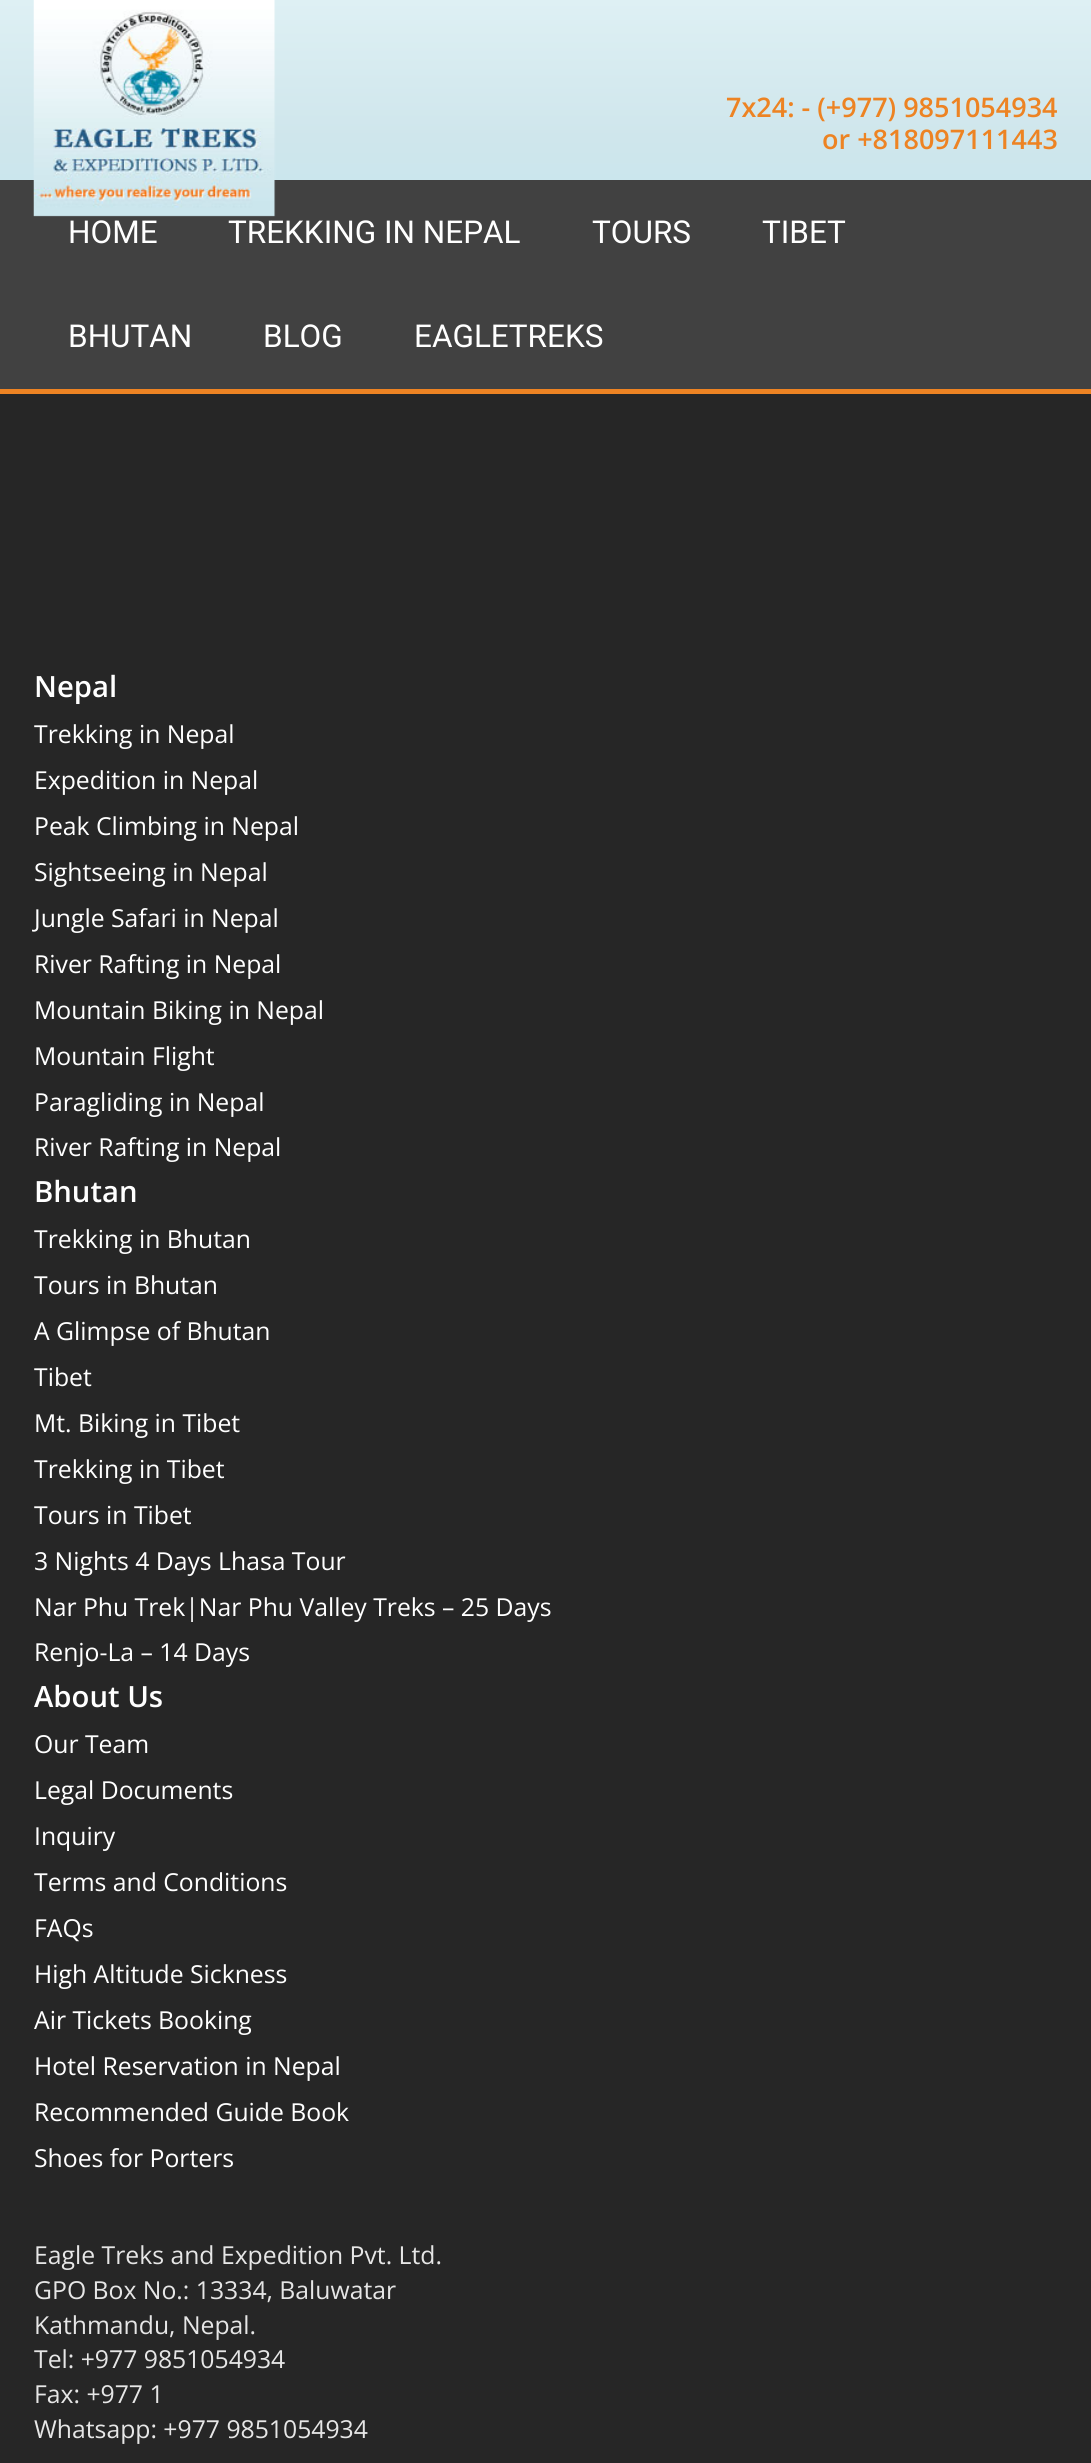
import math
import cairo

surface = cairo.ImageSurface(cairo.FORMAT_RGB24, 1091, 2463)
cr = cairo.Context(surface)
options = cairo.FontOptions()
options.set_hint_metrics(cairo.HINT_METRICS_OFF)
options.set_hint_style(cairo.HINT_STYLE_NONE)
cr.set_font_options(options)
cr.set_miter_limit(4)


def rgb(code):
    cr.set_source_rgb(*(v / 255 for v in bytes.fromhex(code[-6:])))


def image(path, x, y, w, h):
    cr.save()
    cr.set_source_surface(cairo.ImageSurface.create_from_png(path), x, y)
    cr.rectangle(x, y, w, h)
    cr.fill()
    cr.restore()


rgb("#262626")
cr.paint()
rgb("#414141")
cr.rectangle(0, 180, 1091, 209)
cr.fill()
rgb("#ed8323")
cr.rectangle(0, 389, 1091, 5)
cr.fill()
gradient = cairo.LinearGradient(546, 0, 546, 180)
gradient.add_color_stop_rgba(0, 0.871, 0.941, 0.957, 1)
gradient.add_color_stop_rgba(0.76, 0.812, 0.902, 0.925, 1)
gradient.add_color_stop_rgba(1, 0.796, 0.902, 0.929, 1)
cr.set_source(gradient)
cr.rectangle(0, 0, 1091, 180)
cr.fill()
image("img/1.png", 33, 0, 243, 217)
cr.select_font_face("Open Sans SemiBold")
cr.set_font_size(27)
rgb("#ed8323")
cr.move_to(726, 117)
cr.show_text("7x24: - (+977) 9851054934")
cr.move_to(822, 149)
cr.show_text("or +818097111443")
cr.select_font_face("Roboto")
cr.set_font_size(31.5)
rgb("#ffffff")
for x, y, s in [
    (68, 243, "HOME"),
    (228, 243, "TREKKING IN NEPAL"),
    (592, 243, "TOURS"),
    (762, 243, "TIBET"),
    (68, 347, "BHUTAN"),
    (263, 347, "BLOG"),
    (414, 347, "EAGLETREKS"),
]:
    cr.move_to(x, y)
    cr.show_text(s)
cr.select_font_face("Open Sans SemiBold")
cr.set_font_size(29.25)
cr.move_to(34, 697)
cr.show_text("Nepal")
cr.select_font_face("Open Sans")
cr.set_font_size(24.75)
for x, y, s in [
    (34, 743, "Trekking in Nepal"),
    (34, 789, "Expedition in Nepal"),
    (34, 835, "Peak Climbing in Nepal"),
    (34, 881, "Sightseeing in Nepal"),
    (34, 927, "Jungle Safari in Nepal"),
    (34, 973, "River Rafting in Nepal"),
    (34, 1019, "Mountain Biking in Nepal"),
    (34, 1065, "Mountain Flight"),
    (34, 1111, "Paragliding in Nepal"),
    (34, 1156, "River Rafting in Nepal"),
]:
    cr.move_to(x, y)
    cr.show_text(s)
cr.select_font_face("Open Sans SemiBold")
cr.set_font_size(29.25)
cr.move_to(34, 1202)
cr.show_text("Bhutan")
cr.select_font_face("Open Sans")
cr.set_font_size(24.75)
for x, y, s in [
    (34, 1248, "Trekking in Bhutan"),
    (34, 1294, "Tours in Bhutan"),
    (34, 1340, "A Glimpse of Bhutan"),
    (34, 1386, "Tibet"),
    (34, 1432, "Mt. Biking in Tibet"),
    (34, 1478, "Trekking in Tibet"),
    (34, 1524, "Tours in Tibet"),
    (34, 1570, "3 Nights 4 Days Lhasa Tour"),
    (34, 1616, "Nar Phu Trek|Nar Phu Valley Treks – 25 Days"),
    (34, 1661, "Renjo-La – 14 Days"),
]:
    cr.move_to(x, y)
    cr.show_text(s)
cr.select_font_face("Open Sans SemiBold")
cr.set_font_size(29.25)
cr.move_to(34, 1707)
cr.show_text("About Us")
cr.select_font_face("Open Sans")
cr.set_font_size(24.75)
for x, y, s in [
    (34, 1753, "Our Team"),
    (34, 1799, "Legal Documents"),
    (34, 1845, "Inquiry"),
    (34, 1891, "Terms and Conditions"),
    (34, 1937, "FAQs"),
    (34, 1983, "High Altitude Sickness"),
    (34, 2029, "Air Tickets Booking"),
    (34, 2075, "Hotel Reservation in Nepal"),
    (34, 2121, "Recommended Guide Book"),
    (34, 2167, "Shoes for Porters"),
]:
    cr.move_to(x, y)
    cr.show_text(s)
rgb("#e6e6e6")
for x, y, s in [
    (34, 2264, "Eagle Treks and Expedition Pvt. Ltd."),
    (34, 2299, "GPO Box No.: 13334, Baluwatar"),
    (34, 2334, "Kathmandu, Nepal."),
    (34, 2368, "Tel: +977 9851054934"),
    (34, 2403, "Fax: +977 1"),
    (34, 2438, "Whatsapp: +977 9851054934"),
]:
    cr.move_to(x, y)
    cr.show_text(s)
surface.write_to_png("page.png")
